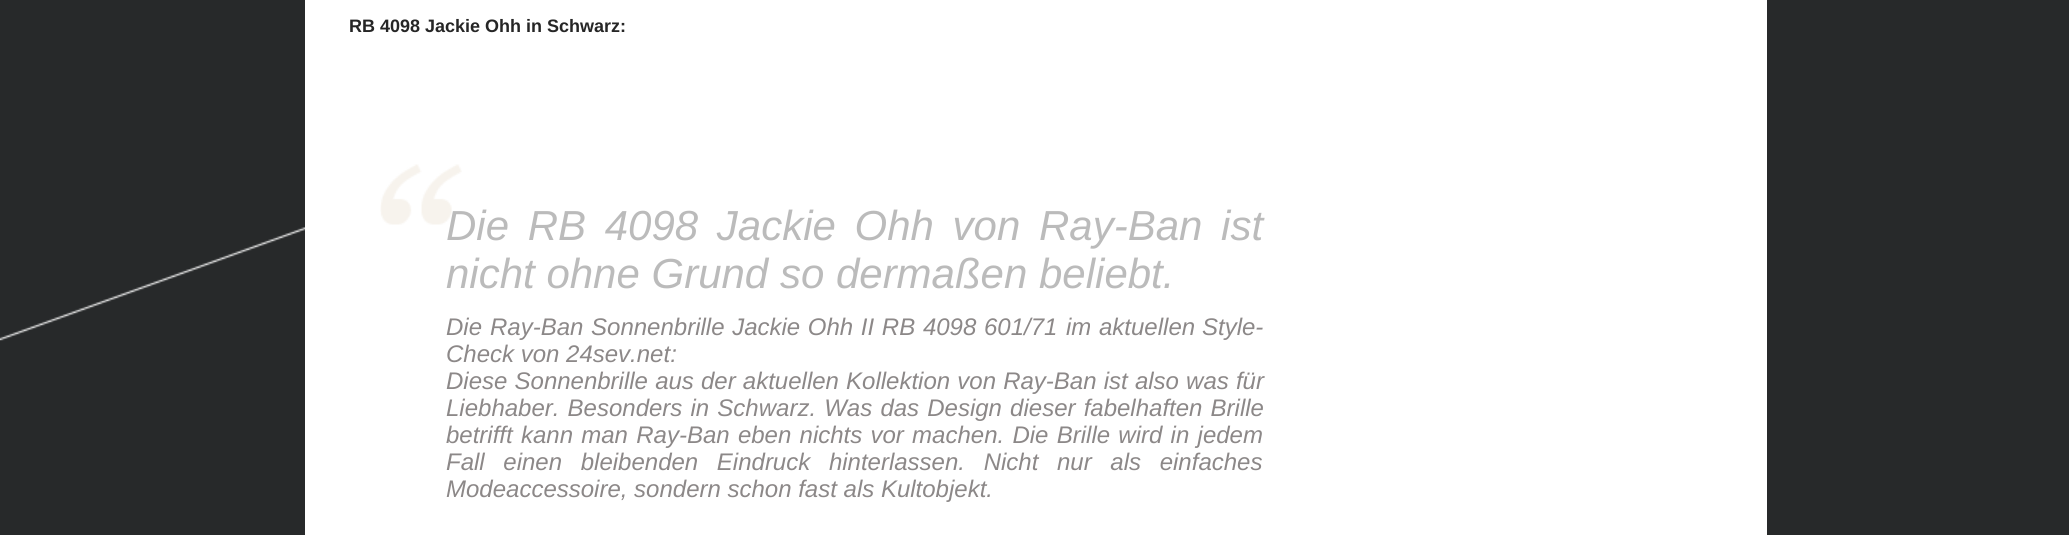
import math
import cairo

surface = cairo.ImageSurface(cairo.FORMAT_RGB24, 2069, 535)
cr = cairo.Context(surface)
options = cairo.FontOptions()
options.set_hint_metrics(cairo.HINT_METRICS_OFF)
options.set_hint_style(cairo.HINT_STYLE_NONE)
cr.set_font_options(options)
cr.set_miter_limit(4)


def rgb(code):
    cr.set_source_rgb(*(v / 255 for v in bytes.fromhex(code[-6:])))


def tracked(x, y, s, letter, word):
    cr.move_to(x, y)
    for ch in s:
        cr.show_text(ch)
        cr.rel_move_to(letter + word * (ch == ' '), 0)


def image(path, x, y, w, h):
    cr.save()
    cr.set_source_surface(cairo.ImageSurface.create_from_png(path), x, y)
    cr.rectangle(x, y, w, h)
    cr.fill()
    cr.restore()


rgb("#27292a")
cr.paint()
image("img/1.png", 0, 227, 305, 114)
rgb("#ffffff")
cr.rectangle(305, 0, 1462, 535)
cr.fill()
image("img/2.png", 380, 164, 82, 61)
cr.select_font_face("Liberation Sans", cairo.FONT_SLANT_NORMAL, cairo.FONT_WEIGHT_BOLD)
cr.set_font_size(18)
rgb("#262626")
cr.move_to(349, 32)
cr.show_text("RB 4098 Jackie Ohh in Schwarz:")
cr.select_font_face("Liberation Sans", cairo.FONT_SLANT_ITALIC)
cr.set_font_size(42)
rgb("#bbbbbb")
tracked(446, 240, "Die RB 4098 Jackie Ohh von Ray-Ban ist", 0, 7)
cr.move_to(446, 288)
cr.show_text("nicht ohne Grund so dermaßen beliebt.")
cr.set_font_size(24)
rgb("#8c8888")
cr.move_to(446, 335)
cr.show_text("Die")
tracked(490, 335, "Ray-Ban Sonnenbrille Jackie Ohh II RB 4098 601/71", 0, 1)
for x, y, s in [
    (1066, 335, "im"),
    (1099, 335, "aktuellen"),
    (1202, 335, "Style-"),
    (446, 362, "Check von 24sev.net:"),
]:
    cr.move_to(x, y)
    cr.show_text(s)
tracked(446, 389, "Diese Sonnenbrille aus der aktuellen Kollektion von Ray-Ban ist also was für", 0, 0.5)
tracked(446, 416, "Liebhaber. Besonders in Schwarz. Was das Design dieser fabelhaften Brille", 0, 1.5)
tracked(446, 443, "betrifft kann man Ray-Ban eben nichts vor machen. Die Brille wird in jedem", 0, 1.6)
tracked(446, 470, "Fall einen bleibenden Eindruck hinterlassen. Nicht nur als einfaches", 0, 12)
cr.move_to(446, 497)
cr.show_text("Modeaccessoire, sondern schon fast als Kultobjekt.")
surface.write_to_png("page.png")
